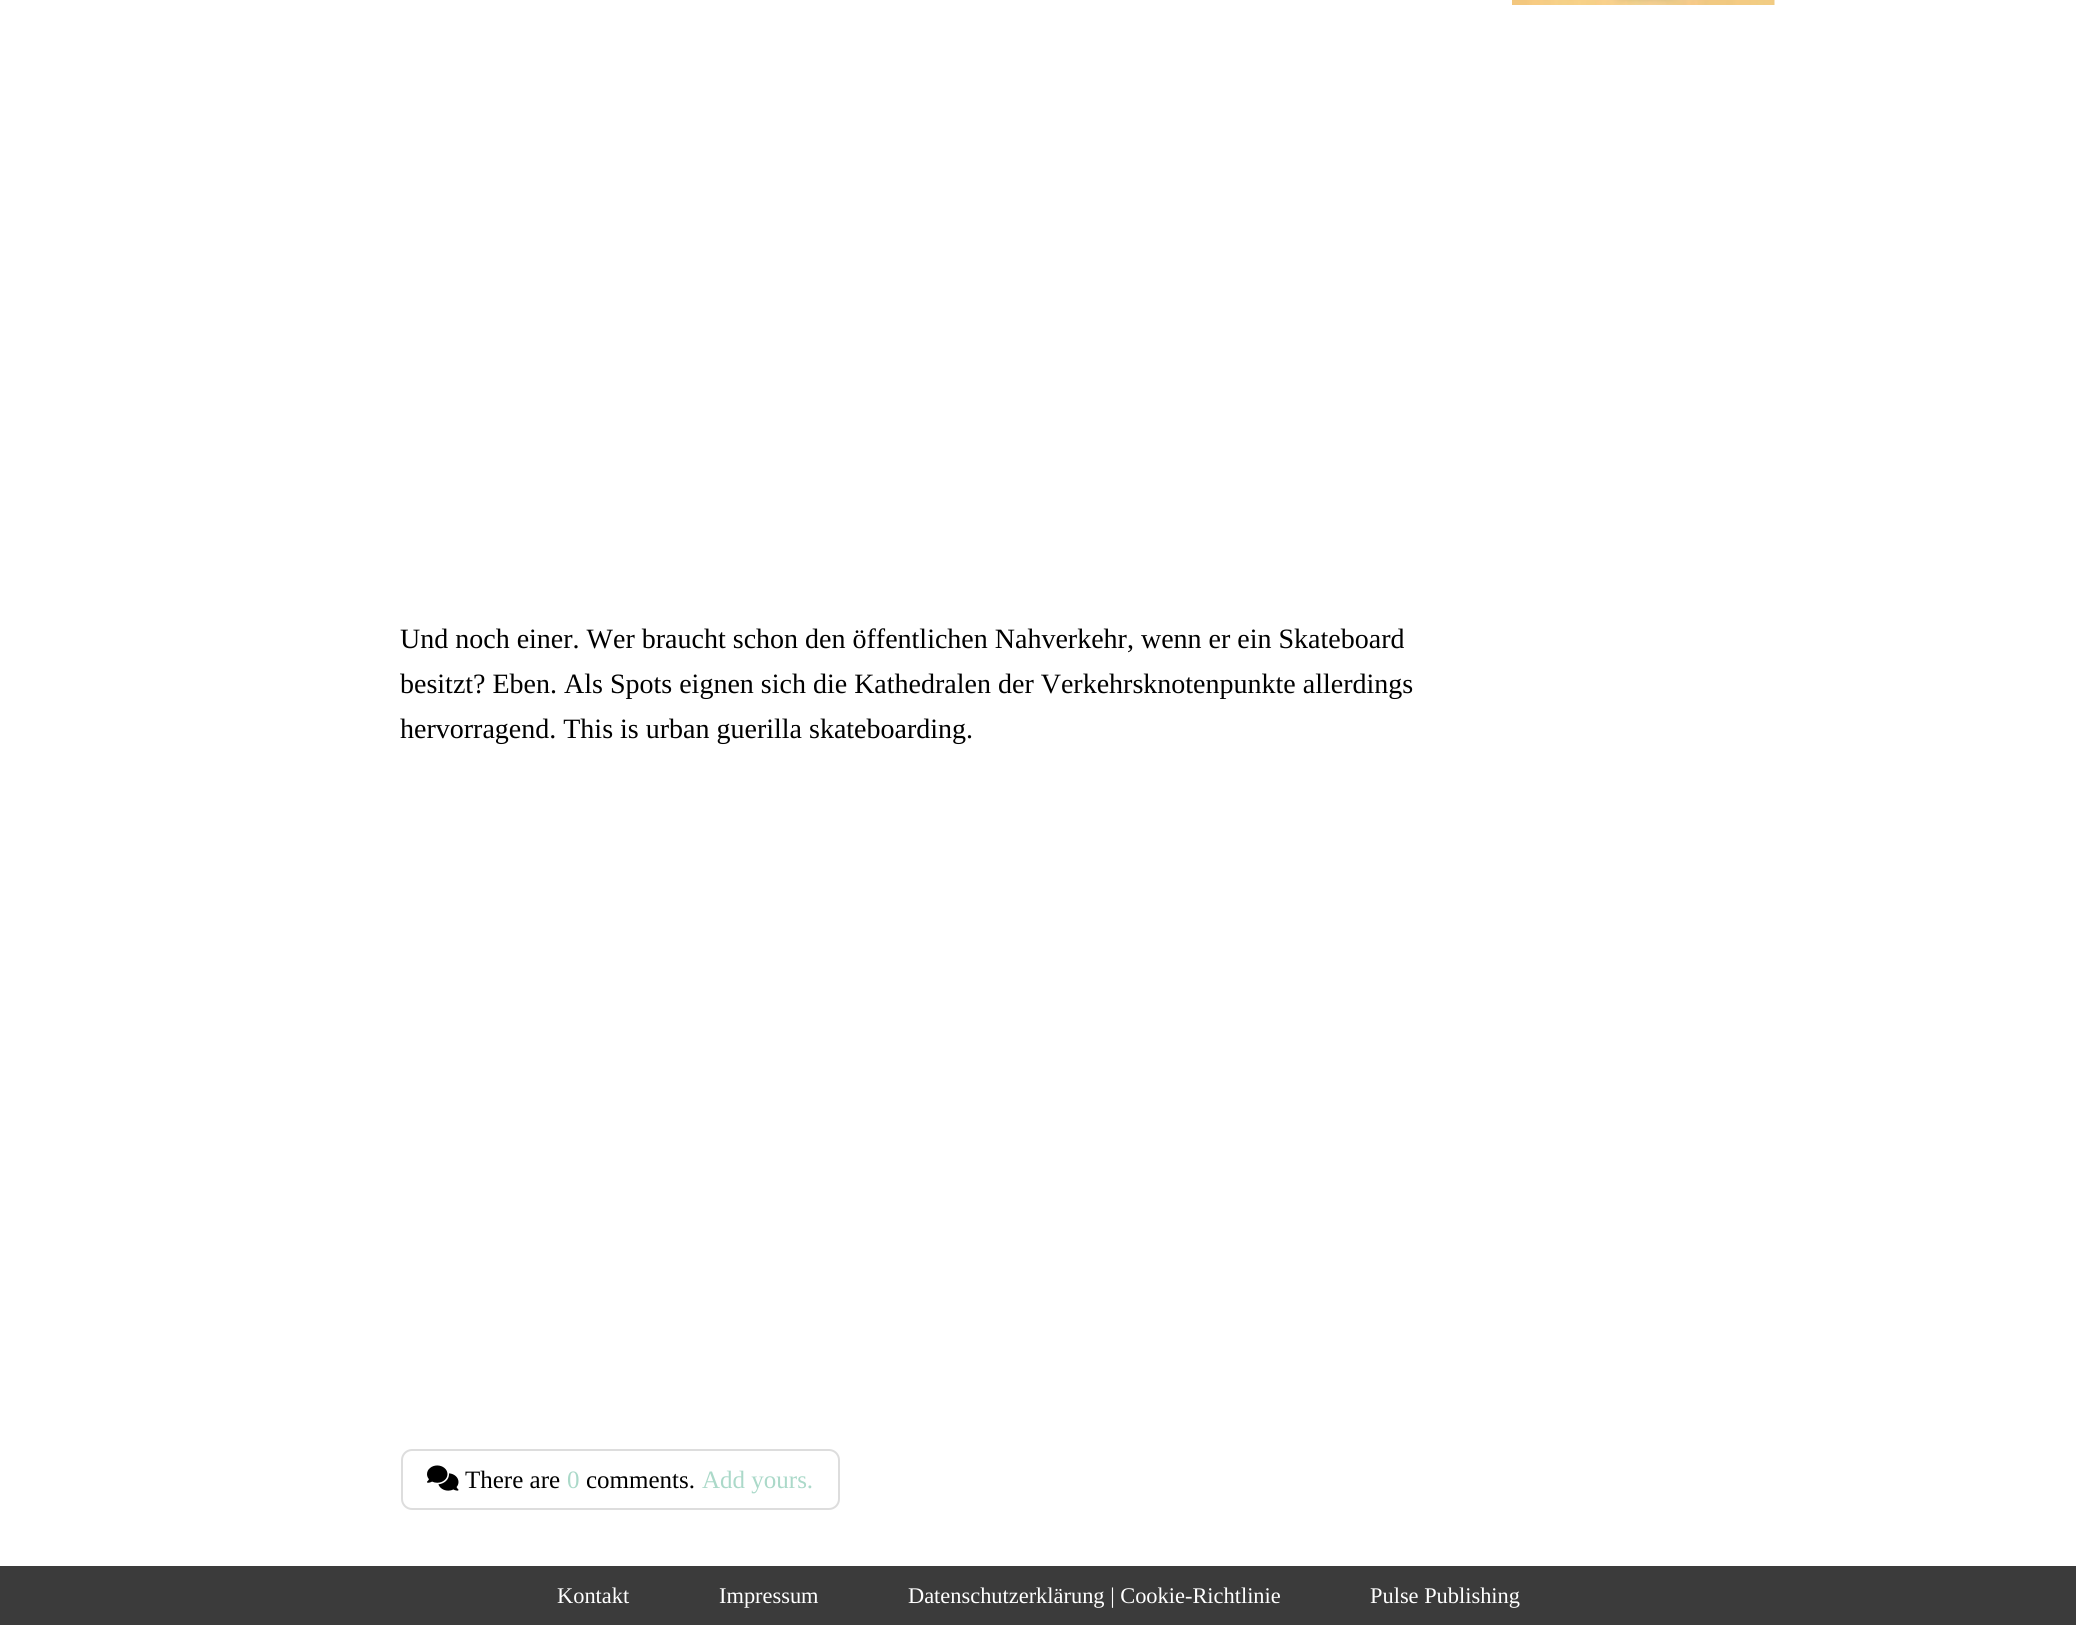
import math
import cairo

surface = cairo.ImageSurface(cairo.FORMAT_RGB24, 2076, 1625)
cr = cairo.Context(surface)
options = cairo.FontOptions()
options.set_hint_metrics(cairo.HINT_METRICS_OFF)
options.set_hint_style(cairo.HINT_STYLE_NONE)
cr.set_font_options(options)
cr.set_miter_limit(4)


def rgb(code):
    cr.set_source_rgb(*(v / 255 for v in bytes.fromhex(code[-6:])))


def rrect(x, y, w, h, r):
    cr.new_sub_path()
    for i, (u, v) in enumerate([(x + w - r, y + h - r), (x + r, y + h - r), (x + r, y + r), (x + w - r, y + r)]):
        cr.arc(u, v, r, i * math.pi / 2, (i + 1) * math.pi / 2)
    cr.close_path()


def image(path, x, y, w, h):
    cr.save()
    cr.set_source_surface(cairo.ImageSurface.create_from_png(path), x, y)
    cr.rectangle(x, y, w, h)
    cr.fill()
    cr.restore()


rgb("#ffffff")
cr.paint()
image("img/1.png", 1512, 0, 263, 5)
rrect(402, 1450, 437, 59, 10)
rgb("#dddddd")
cr.stroke()
image("img/2.png", 427, 1465, 32, 26)
rgb("#3b3b3b")
cr.rectangle(0, 1566, 2076, 59)
cr.fill()
cr.select_font_face("Liberation Serif")
cr.set_font_size(28)
rgb("#000000")
for x, y, s in [
    (400, 648, "Und noch einer. Wer braucht schon den öffentlichen Nahverkehr, wenn er ein Skateboard"),
    (400, 693, "besitzt? Eben. Als Spots eignen sich die Kathedralen der Verkehrsknotenpunkte allerdings"),
    (400, 738, "hervorragend. This is urban guerilla skateboarding."),
]:
    cr.move_to(x, y)
    cr.show_text(s)
cr.set_font_size(25)
cr.move_to(465, 1488)
cr.show_text("There are")
rgb("#abd9c9")
cr.move_to(567, 1488)
cr.show_text("0")
rgb("#000000")
cr.move_to(586, 1488)
cr.show_text("comments.")
rgb("#abd9c9")
cr.move_to(702, 1488)
cr.show_text("Add yours.")
cr.set_font_size(22.4)
rgb("#ffffff")
for x, y, s in [
    (557, 1603, "Kontakt"),
    (719, 1603, "Impressum"),
    (908, 1603, "Datenschutzerklärung | Cookie-Richtlinie"),
    (1370, 1603, "Pulse Publishing"),
]:
    cr.move_to(x, y)
    cr.show_text(s)
surface.write_to_png("page.png")
